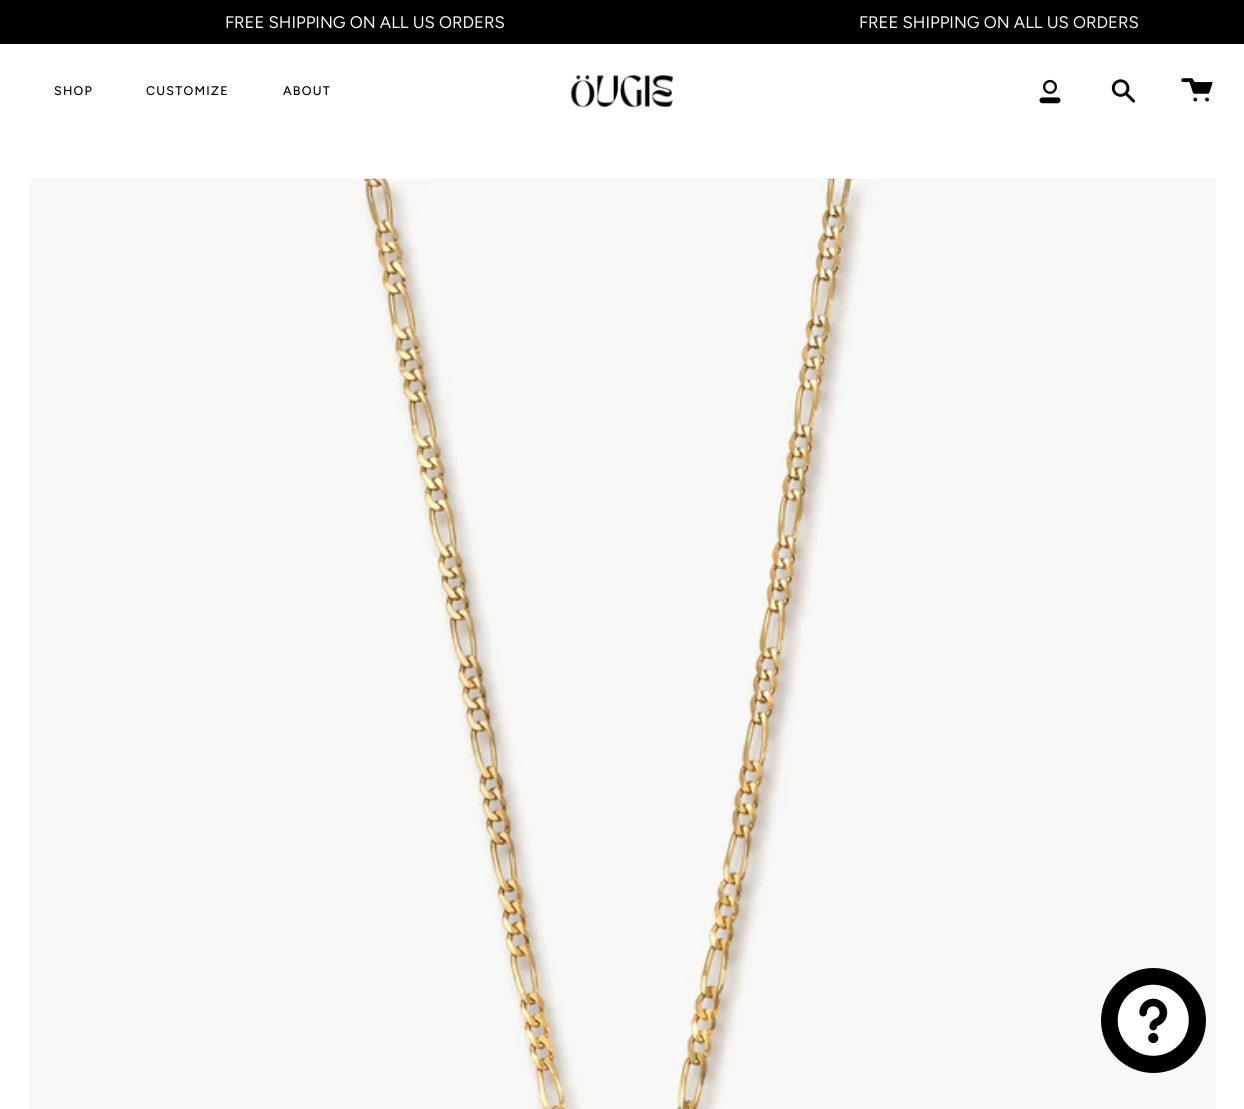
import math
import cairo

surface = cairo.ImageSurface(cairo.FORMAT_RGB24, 1244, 1109)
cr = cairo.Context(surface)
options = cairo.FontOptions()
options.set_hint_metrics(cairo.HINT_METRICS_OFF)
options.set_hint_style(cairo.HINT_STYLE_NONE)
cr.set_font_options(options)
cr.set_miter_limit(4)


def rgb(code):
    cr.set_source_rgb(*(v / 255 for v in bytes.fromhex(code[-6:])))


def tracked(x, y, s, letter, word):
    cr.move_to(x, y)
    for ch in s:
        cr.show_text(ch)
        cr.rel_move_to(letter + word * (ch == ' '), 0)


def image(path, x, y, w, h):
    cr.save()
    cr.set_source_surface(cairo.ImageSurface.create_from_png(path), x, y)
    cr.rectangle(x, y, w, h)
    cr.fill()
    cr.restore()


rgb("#ffffff")
cr.paint()
rgb("#000000")
cr.rectangle(0, 0, 1244, 44)
cr.fill()
image("img/1.png", 570, 75, 104, 33)
image("img/2.png", 1039, 79, 22, 25)
image("img/3.png", 1111, 79, 25, 24)
image("img/4.png", 1181, 78, 32, 24)
image("img/5.png", 29, 178, 1187, 931)
cr.arc(1153.5, 1020.5, 52.5, 0, 2 * math.pi)
cr.fill()
image("img/6.png", 1117, 984, 72, 72)
cr.select_font_face("Figtree")
cr.set_font_size(16.75)
rgb("#f7f7f7")
cr.move_to(225, 28)
cr.show_text("FREE SHIPPING ON ALL US ORDERS")
cr.move_to(859, 28)
cr.show_text("FREE SHIPPING ON ALL US ORDERS")
cr.select_font_face("Figtree Medium")
cr.set_font_size(12.5)
rgb("#000000")
for x, y, s in [
    (54, 95, "SHOP"),
    (146, 95, "CUSTOMIZE"),
    (283, 95, "ABOUT"),
]:
    tracked(x, y, s, 1.25, 0)
surface.write_to_png("page.png")
